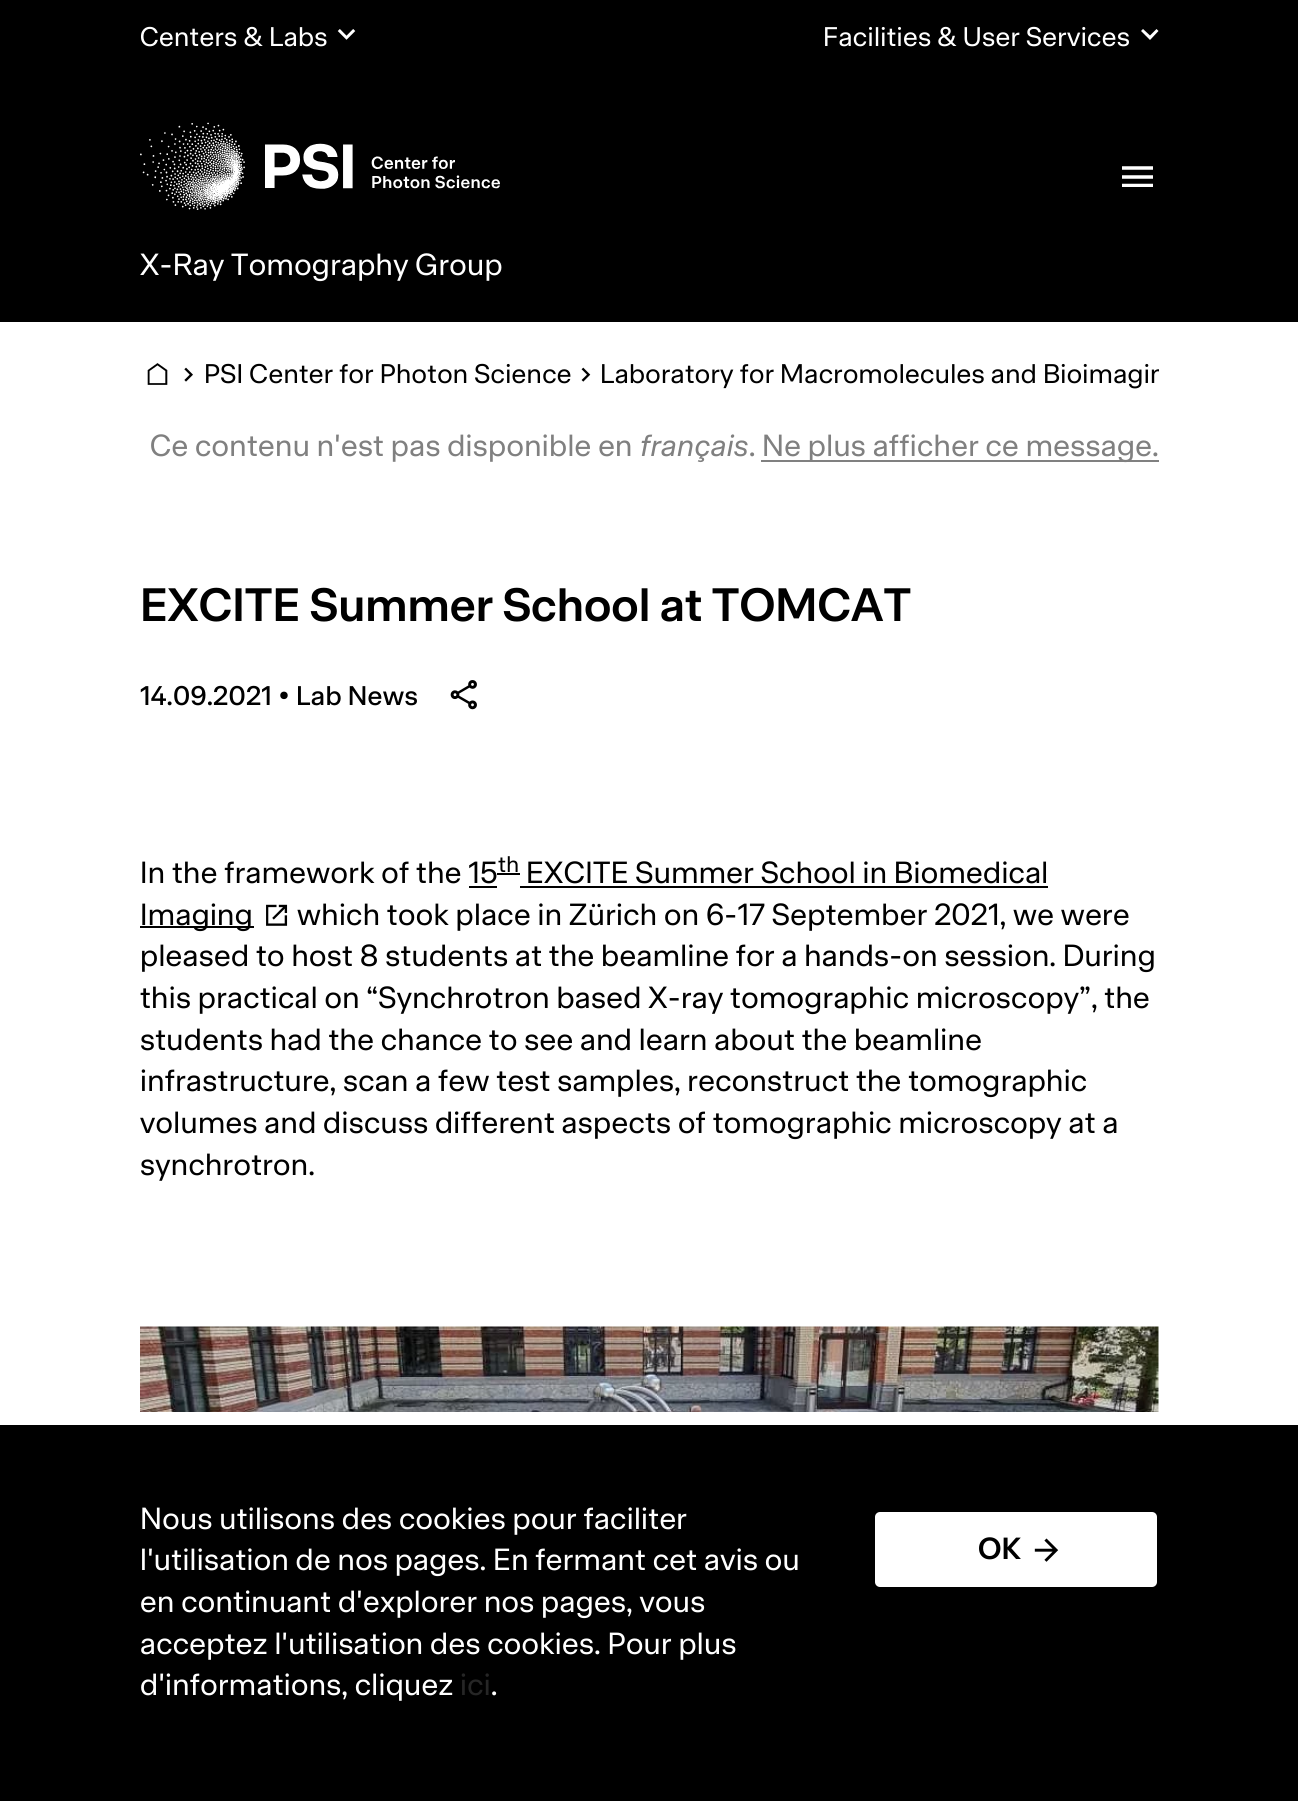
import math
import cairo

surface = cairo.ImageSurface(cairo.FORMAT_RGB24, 1298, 1801)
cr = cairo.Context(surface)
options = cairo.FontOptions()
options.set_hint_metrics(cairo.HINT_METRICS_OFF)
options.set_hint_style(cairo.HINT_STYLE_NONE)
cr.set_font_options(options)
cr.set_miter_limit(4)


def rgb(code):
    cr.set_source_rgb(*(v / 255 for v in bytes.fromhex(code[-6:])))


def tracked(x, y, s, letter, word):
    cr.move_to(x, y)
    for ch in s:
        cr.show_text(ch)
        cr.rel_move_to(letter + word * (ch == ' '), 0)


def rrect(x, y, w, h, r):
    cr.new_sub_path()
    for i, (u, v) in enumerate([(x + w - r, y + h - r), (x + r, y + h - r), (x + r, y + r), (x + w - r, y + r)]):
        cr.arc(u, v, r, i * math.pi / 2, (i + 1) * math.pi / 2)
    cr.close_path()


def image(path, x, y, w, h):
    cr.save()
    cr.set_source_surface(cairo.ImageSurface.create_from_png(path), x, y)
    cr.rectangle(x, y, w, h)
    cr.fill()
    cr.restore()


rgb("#ffffff")
cr.paint()
rgb("#000000")
cr.rectangle(0, 0, 1298, 322)
cr.fill()
image("img/1.png", 337, 29, 19, 11)
rgb("#ffffff")
cr.new_path()
cr.move_to(1150, 40)
cr.line_to(1141, 31)
cr.line_to(1143, 29)
cr.line_to(1150, 35.5)
cr.line_to(1156.5, 29)
cr.line_to(1158.5, 31)
cr.close_path()
cr.fill()
image("img/2.png", 140, 122, 360, 88)
cr.save()
cr.rectangle(1122, 166, 31, 21)
cr.clip()
cr.new_path()
cr.move_to(1122, 168)
cr.line_to(1153, 168)
cr.move_to(1122, 177)
cr.line_to(1153, 177)
cr.move_to(1122, 185.5)
cr.line_to(1153, 185.5)
cr.set_line_width(3.5)
cr.stroke()
cr.restore()
image("img/3.png", 147, 363, 21, 22)
image("img/4.png", 184, 367, 9, 15)
image("img/5.png", 581, 367, 10, 15)
rgb("#808080")
cr.rectangle(761, 460, 398, 2)
cr.fill()
image("img/6.png", 450, 680, 27, 30)
for x, y, w, h, color in [
    (497, 873, 23, 2, "#000000"),
    (520, 886, 528, 2, "#000000"),
    (469, 886, 28, 2, "#000000"),
    (140, 926, 114, 2, "#000000"),
]:
    rgb(color)
    cr.rectangle(x, y, w, h)
    cr.fill()
image("img/7.png", 266, 904, 22, 22)
image("img/8.png", 140, 1326, 1019, 86)
cr.rectangle(0, 1425, 1298, 376)
cr.fill()
rgb("#ffffff")
rrect(874, 1511, 284, 77, 6)
cr.fill_preserve()
rgb("#000000")
cr.stroke()
image("img/9.png", 1034, 1538, 25, 24)
cr.select_font_face("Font")
cr.set_font_size(26.25)
rgb("#ffffff")
tracked(140, 46, "Centers & Labs", 0.35, 0)
tracked(823, 46, "Facilities & User Services", 0.35, 0)
cr.set_font_size(29.75)
tracked(140, 275, "X-Ray Tomography Group", 0.35, 0)
cr.set_font_size(26.25)
rgb("#000000")
tracked(204, 383, "PSI Center for Photon Science", 0.35, 0)
cr.save()
cr.rectangle(140, 357, 1019, 35)
cr.clip()
tracked(600, 383, "Laboratory for Macromolecules and Bioimagin", 0.35, 0)
cr.restore()
cr.set_font_size(29.75)
rgb("#808080")
tracked(150, 456, "Ce contenu n'est pas disponible en", 0.35, 0)
cr.select_font_face("Font", cairo.FONT_SLANT_ITALIC)
tracked(640, 456, "français", 0.35, 0)
cr.select_font_face("Font")
tracked(749, 456, ".", 0.35, 0)
tracked(762, 456, "Ne plus afficher ce message.", 0.35, 0)
cr.select_font_face("Font SemiBold")
cr.set_font_size(45.5)
rgb("#000000")
cr.move_to(140, 621)
cr.show_text("EXCITE Summer School at TOMCAT")
cr.select_font_face("Font Medium")
cr.set_font_size(26.25)
for x, y, s in [
    (140, 705, "14.09.2021"),
    (279, 705, "•"),
    (296, 705, "Lab News"),
]:
    tracked(x, y, s, 0.35, 0)
cr.select_font_face("Font")
cr.set_font_size(22)
tracked(498, 872, "th", 0.35, 0)
cr.set_font_size(29.75)
for x, y, s in [
    (526, 883, "EXCITE Summer School in Biomedical"),
    (140, 925, "Imaging"),
    (140, 883, "In the framework of the 15"),
    (297, 925, "which took place in Zürich on 6-17 September 2021, we were"),
    (140, 966, "pleased to host 8 students at the beamline for a hands-on session. During"),
    (140, 1008, "this practical on “Synchrotron based X-ray tomographic microscopy”, the"),
    (140, 1050, "students had the chance to see and learn about the beamline"),
    (140, 1091, "infrastructure, scan a few test samples, reconstruct the tomographic"),
    (140, 1133, "volumes and discuss different aspects of tomographic microscopy at a"),
    (140, 1175, "synchrotron."),
]:
    tracked(x, y, s, 0.35, 0)
rgb("#ffffff")
for x, y, s in [
    (140, 1529, "Nous utilisons des cookies pour faciliter"),
    (140, 1570, "l'utilisation de nos pages. En fermant cet avis ou"),
    (140, 1612, "en continuant d'explorer nos pages, vous"),
    (140, 1654, "acceptez l'utilisation des cookies. Pour plus"),
    (140, 1695, "d'informations, cliquez"),
]:
    tracked(x, y, s, 0.35, 0)
rgb("#262626")
tracked(460, 1695, "ici", 0.35, 0)
rgb("#ffffff")
tracked(491, 1695, ".", 0.35, 0)
cr.select_font_face("Font SemiBold")
rgb("#000000")
cr.move_to(978, 1559)
cr.show_text("OK")
surface.write_to_png("page.png")
